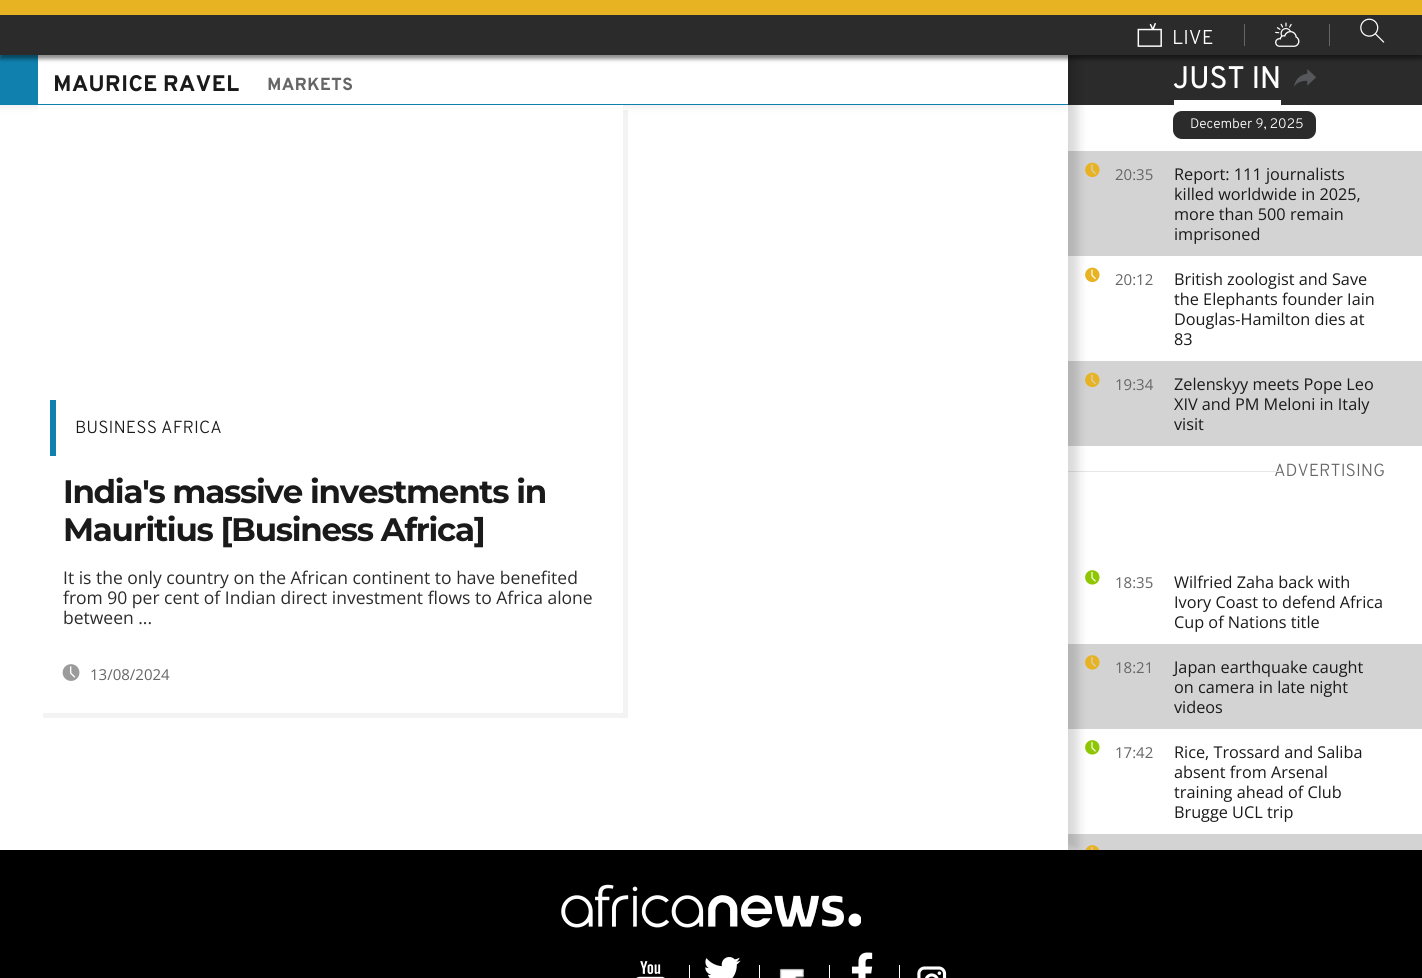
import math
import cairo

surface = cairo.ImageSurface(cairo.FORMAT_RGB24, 1422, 978)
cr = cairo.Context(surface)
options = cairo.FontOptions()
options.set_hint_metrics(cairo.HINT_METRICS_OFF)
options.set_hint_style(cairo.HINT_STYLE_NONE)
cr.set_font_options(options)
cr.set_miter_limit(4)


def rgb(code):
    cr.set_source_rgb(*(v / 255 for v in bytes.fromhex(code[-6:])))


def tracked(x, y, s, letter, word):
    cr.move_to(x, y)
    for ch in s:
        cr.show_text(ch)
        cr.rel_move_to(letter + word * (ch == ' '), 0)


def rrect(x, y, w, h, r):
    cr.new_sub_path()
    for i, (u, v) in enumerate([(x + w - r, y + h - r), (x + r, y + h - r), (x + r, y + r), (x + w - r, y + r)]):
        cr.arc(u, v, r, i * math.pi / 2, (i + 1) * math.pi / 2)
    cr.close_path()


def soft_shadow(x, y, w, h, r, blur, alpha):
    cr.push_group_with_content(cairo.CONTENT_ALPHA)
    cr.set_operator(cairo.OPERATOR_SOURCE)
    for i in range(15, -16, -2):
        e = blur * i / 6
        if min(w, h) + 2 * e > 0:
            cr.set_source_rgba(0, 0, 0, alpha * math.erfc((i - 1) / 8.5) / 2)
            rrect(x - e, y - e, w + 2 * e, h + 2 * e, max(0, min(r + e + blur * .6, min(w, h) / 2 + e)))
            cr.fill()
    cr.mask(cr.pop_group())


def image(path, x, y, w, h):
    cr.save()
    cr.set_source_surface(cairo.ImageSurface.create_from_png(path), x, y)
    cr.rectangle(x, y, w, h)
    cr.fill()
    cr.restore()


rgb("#ffffff")
cr.paint()
rgb("#2b2b2b")
cr.rectangle(1068, 55, 354, 50)
cr.fill()
rgb("#ffffff")
cr.rectangle(1174, 100, 107, 5)
cr.fill()
image("img/5.png", 1294, 69, 22, 18)
rgb("#2b2b2b")
rrect(1173, 111, 143, 28, 9)
cr.fill()
rgb("#d3d3d3")
cr.rectangle(1068, 151, 354, 105)
cr.fill()
image("img/6.png", 1085, 162, 15, 16)
image("img/7.png", 1085, 267, 15, 16)
cr.rectangle(1068, 361, 354, 85)
cr.fill()
image("img/6.png", 1085, 372, 15, 16)
image("img/8.png", 1085, 570, 15, 15)
cr.rectangle(1068, 644, 354, 85)
cr.fill()
image("img/9.png", 1085, 655, 15, 15)
image("img/8.png", 1085, 740, 15, 15)
cr.rectangle(1068, 834, 354, 16)
cr.fill()
image("img/10.png", 1085, 845, 14, 5)
cr.select_font_face("Overpass", cairo.FONT_SLANT_NORMAL, cairo.FONT_WEIGHT_BOLD)
cr.set_font_size(30)
rgb("#ffffff")
cr.move_to(1173, 88)
cr.show_text("JUST IN")
cr.select_font_face("Overpass Light")
cr.set_font_size(13.75)
cr.move_to(1190, 128)
cr.show_text("December 9, 2025")
cr.select_font_face("Open Sans")
cr.set_font_size(15)
rgb("#666666")
cr.move_to(1115, 180)
cr.show_text("20:35")
cr.set_font_size(16.25)
rgb("#1a1a1a")
for x, y, s in [
    (1174, 180, "Report: 111 journalists"),
    (1174, 200, "killed worldwide in 2025,"),
    (1174, 220, "more than 500 remain"),
    (1174, 240, "imprisoned"),
]:
    cr.move_to(x, y)
    cr.show_text(s)
cr.set_font_size(15)
rgb("#666666")
cr.move_to(1115, 285)
cr.show_text("20:12")
cr.set_font_size(16.25)
rgb("#1a1a1a")
for x, y, s in [
    (1174, 285, "British zoologist and Save"),
    (1174, 305, "the Elephants founder Iain"),
    (1174, 325, "Douglas-Hamilton dies at"),
    (1174, 345, "83"),
]:
    cr.move_to(x, y)
    cr.show_text(s)
cr.set_font_size(15)
rgb("#666666")
cr.move_to(1115, 390)
cr.show_text("19:34")
cr.set_font_size(16.25)
rgb("#1a1a1a")
for x, y, s in [
    (1174, 390, "Zelenskyy meets Pope Leo"),
    (1174, 410, "XIV and PM Meloni in Italy"),
    (1174, 430, "visit"),
]:
    cr.move_to(x, y)
    cr.show_text(s)
cr.select_font_face("Overpass Light")
cr.set_font_size(17.5)
rgb("#666666")
cr.move_to(1274, 476)
cr.show_text("ADVERTISING")
rgb("#e6e6e6")
cr.rectangle(1068, 471, 212, 1)
cr.fill()
cr.save()
cr.set_fill_rule(cairo.FILL_RULE_EVEN_ODD)
cr.new_path()
cr.move_to(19, 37)
cr.line_to(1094, 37)
cr.line_to(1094, 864)
cr.line_to(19, 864)
cr.close_path()
cr.move_to(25, 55)
cr.line_to(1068, 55)
cr.line_to(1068, 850)
cr.line_to(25, 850)
cr.close_path()
cr.clip()
rgb("#000000")
soft_shadow(35, 53, 1043, 795, 0, 5, 0.15)
cr.restore()
rgb("#ffffff")
cr.rectangle(1067, 105, 1, 695)
cr.fill()
rgb("#000000")
soft_shadow(-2, 53, 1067, 50, 0, 6, 0.15)
rgb("#1081ae")
cr.rectangle(0, 55, 38, 49)
cr.fill()
rgb("#ffffff")
cr.rectangle(38, 55, 1030, 49)
cr.fill()
rgb("#000000")
soft_shadow(0, -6, 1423, 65, 0, 2, 0.45)
rgb("#2b2b2b")
cr.rectangle(0, 15, 1422, 40)
cr.fill()
image("img/3.png", 1360, 18, 25, 25)
rgb("#666666")
cr.rectangle(1329, 24, 1, 22)
cr.fill()
cr.rectangle(1244, 24, 1, 22)
cr.fill()
image("img/2.png", 1275, 22, 25, 25)
cr.set_font_size(20)
rgb("#ffffff")
cr.move_to(1172, 44)
cr.show_text("LIVE")
image("img/1.png", 1137, 22, 25, 25)
rgb("#e7b322")
cr.rectangle(0, 0, 1422, 15)
cr.fill()
cr.set_source_rgba(0, 0, 0, 0.05)
cr.new_path()
cr.move_to(43, 712)
cr.line_to(43, 718)
cr.line_to(628, 718)
cr.line_to(628, 110)
cr.line_to(622, 110)
cr.line_to(622, 712)
cr.close_path()
cr.fill()
rgb("#ffffff")
cr.rectangle(38, 105, 585, 608)
cr.fill()
cr.set_font_size(17.5)
rgb("#1a1a1a")
cr.move_to(75, 433)
cr.show_text("BUSINESS AFRICA")
rgb("#1081ae")
cr.rectangle(50, 400, 6, 56)
cr.fill()
image("img/4.png", 62, 664, 18, 17)
cr.select_font_face("Open Sans")
cr.set_font_size(15)
rgb("#666666")
cr.move_to(90, 680)
cr.show_text("13/08/2024")
cr.set_font_size(17.5)
rgb("#2b2b2b")
for x, y, s in [
    (63, 624, "between ..."),
    (63, 604, "from 90 per cent of Indian direct investment flows to Africa alone"),
    (63, 584, "It is the only country on the African continent to have benefited"),
]:
    cr.move_to(x, y)
    cr.show_text(s)
cr.select_font_face("Montserrat Thin")
cr.set_font_size(32.5)
rgb("#1a1a1a")
tracked(63, 541, "Mauritius [Business Africa]", -1.25, 0)
tracked(63, 503, "India's massive investments in", -1.25, 0)
cr.select_font_face("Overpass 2", cairo.FONT_SLANT_NORMAL, cairo.FONT_WEIGHT_BOLD)
cr.set_font_size(17.5)
rgb("#666666")
cr.move_to(267, 90)
cr.show_text("MARKETS")
cr.set_font_size(22.5)
rgb("#1a1a1a")
cr.move_to(53, 91)
cr.show_text("MAURICE RAVEL")
rgb("#1081ae")
cr.rectangle(0, 104, 1068, 1)
cr.fill()
cr.select_font_face("Open Sans")
cr.set_font_size(15)
rgb("#666666")
cr.move_to(1115, 588)
cr.show_text("18:35")
cr.set_font_size(16.25)
rgb("#1a1a1a")
for x, y, s in [
    (1174, 588, "Wilfried Zaha back with"),
    (1174, 608, "Ivory Coast to defend Africa"),
    (1174, 628, "Cup of Nations title"),
]:
    cr.move_to(x, y)
    cr.show_text(s)
cr.set_font_size(15)
rgb("#666666")
cr.move_to(1115, 673)
cr.show_text("18:21")
cr.set_font_size(16.25)
rgb("#1a1a1a")
for x, y, s in [
    (1174, 673, "Japan earthquake caught"),
    (1174, 693, "on camera in late night"),
    (1174, 713, "videos"),
]:
    cr.move_to(x, y)
    cr.show_text(s)
cr.set_font_size(15)
rgb("#666666")
cr.move_to(1115, 758)
cr.show_text("17:42")
cr.set_font_size(16.25)
rgb("#1a1a1a")
for x, y, s in [
    (1174, 758, "Rice, Trossard and Saliba"),
    (1174, 778, "absent from Arsenal"),
    (1174, 798, "training ahead of Club"),
    (1174, 818, "Brugge UCL trip"),
]:
    cr.move_to(x, y)
    cr.show_text(s)
rgb("#000000")
cr.rectangle(0, 850, 1422, 128)
cr.fill()
image("img/11.png", 561, 884, 300, 44)
image("img/12.png", 636, 961, 29, 17)
rgb("#ffffff")
cr.rectangle(689, 965, 1, 13)
cr.fill()
cr.rectangle(759, 965, 1, 13)
cr.fill()
image("img/13.png", 705, 957, 36, 21)
image("img/14.png", 779, 968, 25, 10)
cr.rectangle(829, 965, 1, 13)
cr.fill()
cr.rectangle(899, 965, 1, 13)
cr.fill()
image("img/15.png", 851, 952, 22, 26)
image("img/16.png", 917, 966, 30, 12)
surface.write_to_png("page.png")
